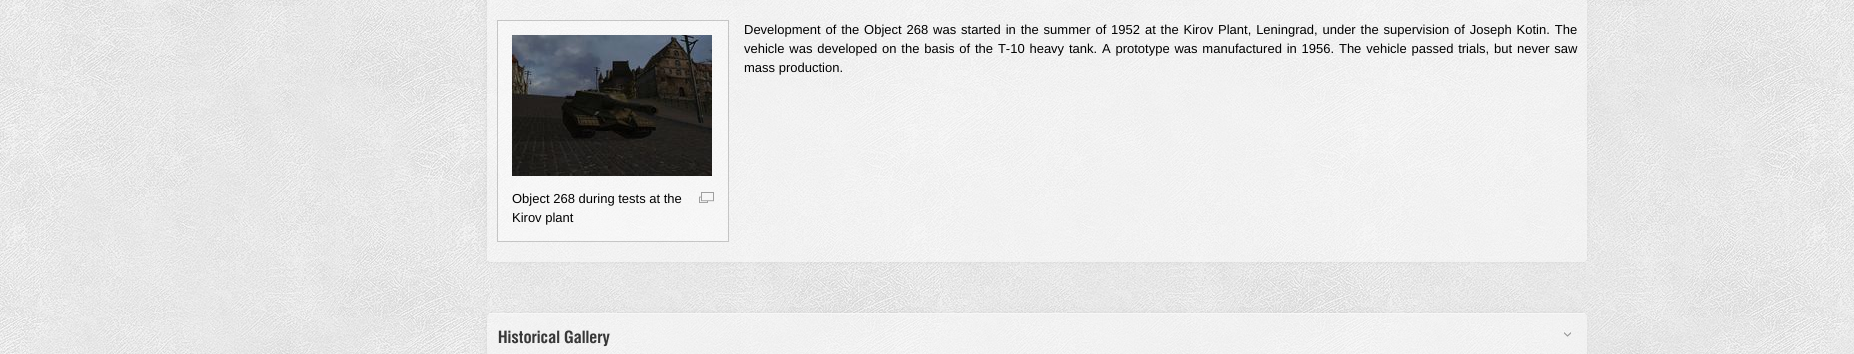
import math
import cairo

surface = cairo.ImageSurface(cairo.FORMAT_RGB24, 1854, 354)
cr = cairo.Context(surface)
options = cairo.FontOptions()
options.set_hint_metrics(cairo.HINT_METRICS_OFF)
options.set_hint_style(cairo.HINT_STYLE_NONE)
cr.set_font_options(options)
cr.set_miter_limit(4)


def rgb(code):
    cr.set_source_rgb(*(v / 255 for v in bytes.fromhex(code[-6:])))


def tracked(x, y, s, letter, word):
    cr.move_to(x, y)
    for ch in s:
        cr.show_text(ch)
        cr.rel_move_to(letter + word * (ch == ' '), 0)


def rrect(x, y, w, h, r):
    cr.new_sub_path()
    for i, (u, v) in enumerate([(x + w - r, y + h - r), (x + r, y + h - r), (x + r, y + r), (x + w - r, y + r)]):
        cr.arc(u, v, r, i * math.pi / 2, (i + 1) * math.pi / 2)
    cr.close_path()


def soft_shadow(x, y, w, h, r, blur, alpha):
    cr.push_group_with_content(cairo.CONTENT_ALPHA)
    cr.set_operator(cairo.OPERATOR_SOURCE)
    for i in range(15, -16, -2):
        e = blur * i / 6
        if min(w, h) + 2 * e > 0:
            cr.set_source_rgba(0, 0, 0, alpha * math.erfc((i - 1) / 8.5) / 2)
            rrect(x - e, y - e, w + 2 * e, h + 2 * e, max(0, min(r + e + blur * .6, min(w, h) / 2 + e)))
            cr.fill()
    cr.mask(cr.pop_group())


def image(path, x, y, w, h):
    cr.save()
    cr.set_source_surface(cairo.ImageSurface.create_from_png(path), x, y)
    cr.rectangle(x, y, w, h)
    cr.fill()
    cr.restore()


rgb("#ffffff")
cr.paint()
image("img/1.png", 0, 0, 1854, 354)
cr.save()
cr.set_fill_rule(cairo.FILL_RULE_EVEN_ODD)
cr.new_path()
cr.move_to(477, 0)
cr.line_to(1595, 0)
cr.line_to(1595, 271)
cr.line_to(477, 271)
cr.close_path()
cr.move_to(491, -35)
cr.line_to(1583, -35)
cr.curve_to(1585, -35, 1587, -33, 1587, -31)
cr.line_to(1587, 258)
cr.curve_to(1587, 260, 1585, 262, 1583, 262)
cr.line_to(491, 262)
cr.curve_to(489, 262, 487, 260, 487, 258)
cr.line_to(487, -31)
cr.curve_to(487, -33, 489, -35, 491, -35)
cr.close_path()
cr.clip()
rgb("#bbbbbb")
soft_shadow(490, -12, 1092, 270, 0, 4, 1)
cr.restore()
cr.set_source_rgba(0.976, 0.976, 0.976, 0.6)
rrect(487, -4, 1100, 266, 4)
cr.fill()
cr.set_source_rgba(1, 1, 1, 0.34)
cr.rectangle(497, 20, 232, 222)
cr.fill()
cr.rectangle(497.5, 20.5, 231, 221)
cr.set_source_rgba(0, 0, 0, 0.2)
cr.set_line_width(1)
cr.stroke()
image("img/2.png", 512, 35, 200, 141)
image("img/3.png", 699, 192, 15, 11)
cr.save()
cr.set_fill_rule(cairo.FILL_RULE_EVEN_ODD)
cr.new_path()
cr.move_to(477, 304)
cr.line_to(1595, 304)
cr.line_to(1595, 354)
cr.line_to(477, 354)
cr.close_path()
cr.move_to(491, 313)
cr.line_to(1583, 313)
cr.curve_to(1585, 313, 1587, 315, 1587, 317)
cr.line_to(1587, 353)
cr.curve_to(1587, 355, 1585, 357, 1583, 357)
cr.line_to(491, 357)
cr.curve_to(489, 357, 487, 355, 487, 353)
cr.line_to(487, 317)
cr.curve_to(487, 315, 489, 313, 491, 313)
cr.close_path()
cr.clip()
rgb("#bbbbbb")
soft_shadow(490, 317, 1092, 36, 0, 4, 1)
cr.restore()
cr.set_source_rgba(0.976, 0.976, 0.976, 0.6)
rrect(487, 313, 1100, 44, 4)
cr.fill()
rgb("#f7f7f7")
cr.rectangle(489, 313, 1096, 1)
cr.fill()
image("img/4.png", 1564, 331, 7, 6)
cr.select_font_face("Liberation Sans")
cr.set_font_size(13)
rgb("#000000")
tracked(744, 34, "Development of the Object 268 was started in the summer of 1952 at the Kirov Plant, Leningrad, under the supervision of Joseph Kotin. The", 0, 1.25)
tracked(744, 53, "vehicle was developed on the basis of the T-10 heavy tank. A prototype was manufactured in 1956. The vehicle passed trials, but never saw", 0, 1.2)
for x, y, s in [
    (744, 72, "mass production."),
    (512, 203, "Object 268 during tests at the"),
    (512, 222, "Kirov plant"),
]:
    cr.move_to(x, y)
    cr.show_text(s)
cr.select_font_face("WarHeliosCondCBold", cairo.FONT_SLANT_NORMAL, cairo.FONT_WEIGHT_BOLD)
cr.set_font_size(18)
rgb("#383838")
cr.move_to(498, 343)
cr.show_text("Historical Gallery")
surface.write_to_png("page.png")
